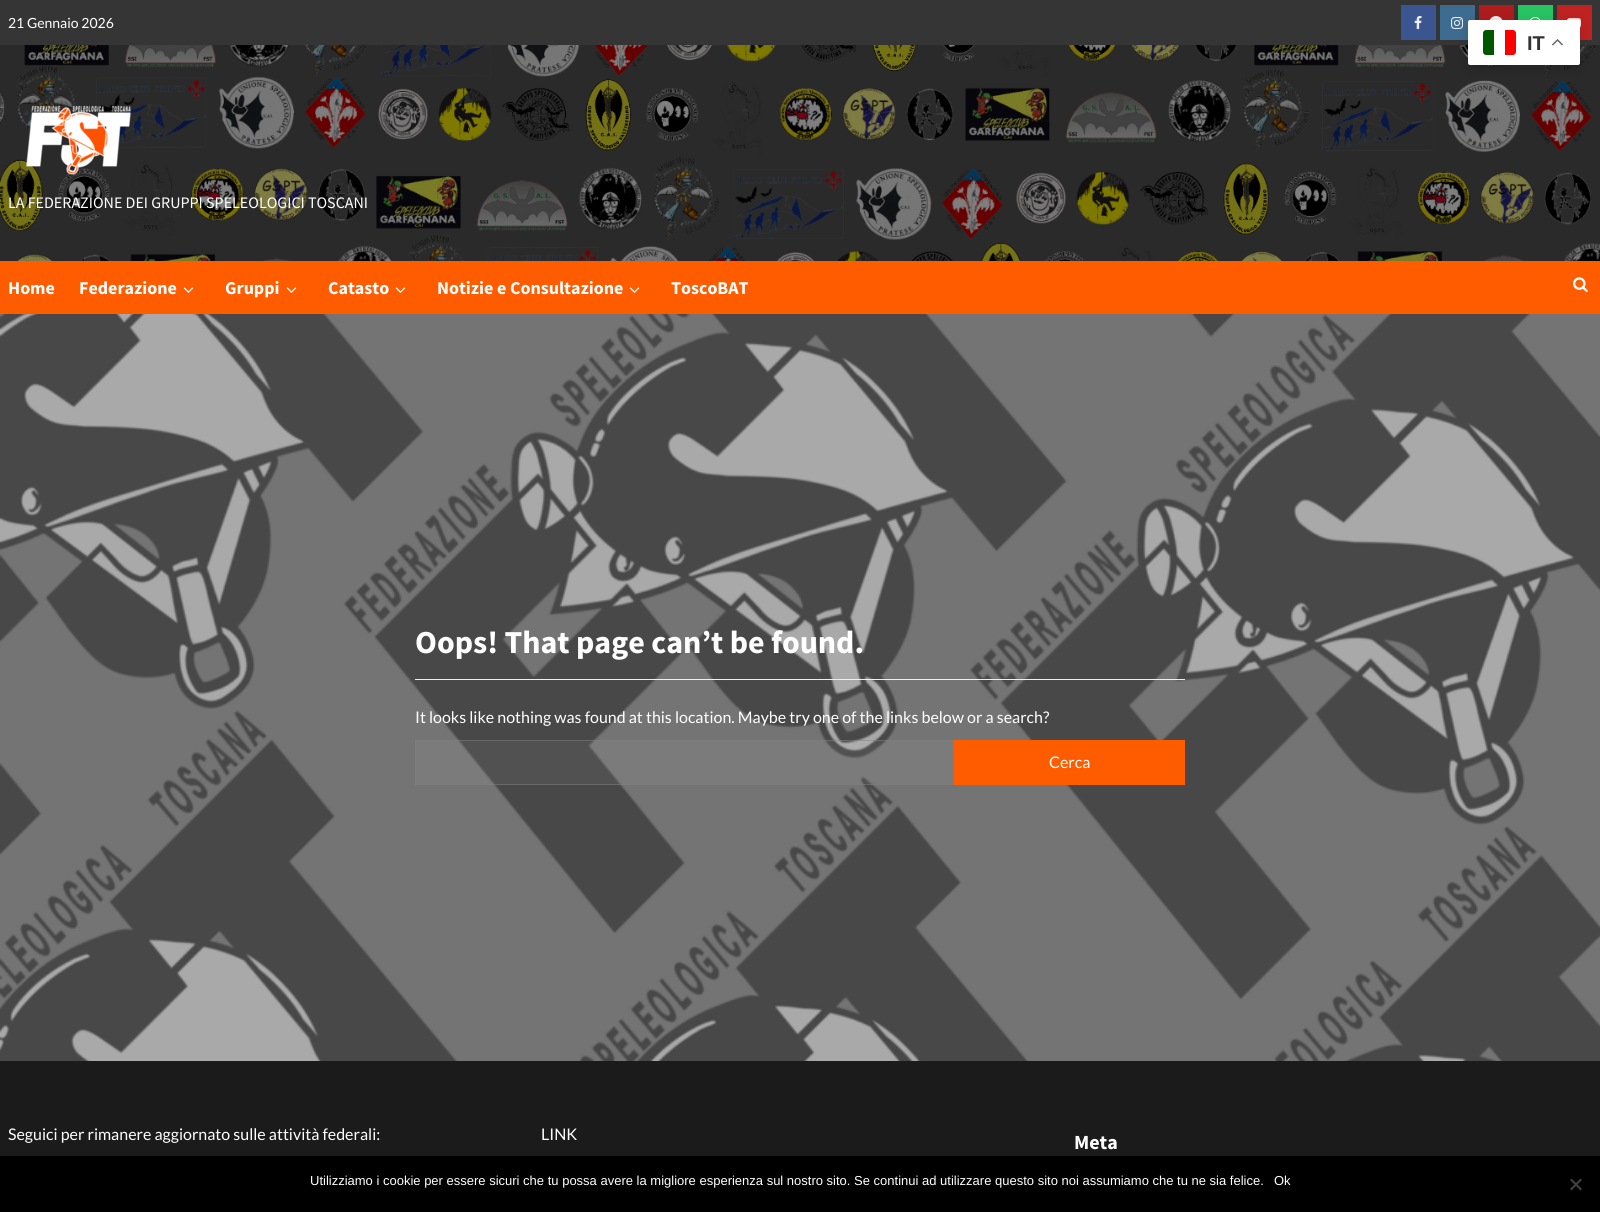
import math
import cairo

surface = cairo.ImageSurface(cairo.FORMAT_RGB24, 1600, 1212)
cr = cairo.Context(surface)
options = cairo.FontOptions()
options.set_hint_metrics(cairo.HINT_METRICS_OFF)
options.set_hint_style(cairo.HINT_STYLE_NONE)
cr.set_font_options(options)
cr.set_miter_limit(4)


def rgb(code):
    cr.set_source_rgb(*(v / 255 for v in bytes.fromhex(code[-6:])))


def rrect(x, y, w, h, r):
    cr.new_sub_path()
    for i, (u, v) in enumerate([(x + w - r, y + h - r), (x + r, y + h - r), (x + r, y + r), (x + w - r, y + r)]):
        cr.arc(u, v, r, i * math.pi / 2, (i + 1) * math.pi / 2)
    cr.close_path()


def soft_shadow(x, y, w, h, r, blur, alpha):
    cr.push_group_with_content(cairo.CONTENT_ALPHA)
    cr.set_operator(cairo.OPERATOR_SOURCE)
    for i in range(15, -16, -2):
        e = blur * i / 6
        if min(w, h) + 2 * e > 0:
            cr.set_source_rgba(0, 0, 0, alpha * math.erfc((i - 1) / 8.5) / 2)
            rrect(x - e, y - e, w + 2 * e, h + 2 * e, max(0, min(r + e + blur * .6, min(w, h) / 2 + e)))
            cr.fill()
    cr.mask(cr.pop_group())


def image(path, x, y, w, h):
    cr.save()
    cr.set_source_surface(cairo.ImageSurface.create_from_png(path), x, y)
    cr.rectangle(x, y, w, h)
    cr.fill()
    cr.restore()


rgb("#ffffff")
cr.paint()
image("img/1.png", 0, 314, 1600, 747)
rgb("#353535")
cr.rectangle(0, 0, 1600, 45)
cr.fill()
rgb("#3a558f")
cr.rectangle(1401, 5, 35, 35)
cr.fill()
image("img/2.png", 1414, 16, 8, 13)
rgb("#3e6c91")
cr.rectangle(1440, 5, 35, 35)
cr.fill()
image("img/3.png", 1451, 17, 12, 12)
rgb("#ae1c1c")
cr.rectangle(1479, 5, 35, 15)
cr.fill()
image("img/4.png", 1489, 16, 14, 4)
rgb("#27c361")
cr.rectangle(1518, 5, 35, 15)
cr.fill()
image("img/5.png", 1530, 17, 11, 3)
rgb("#be2221")
cr.rectangle(1557, 5, 35, 35)
cr.fill()
image("img/6.png", 1567, 18, 14, 10)
image("img/7.png", 0, 45, 1600, 216)
image("img/8.png", 26, 105, 105, 70)
rgb("#ff5c00")
cr.rectangle(0, 261, 1600, 53)
cr.fill()
image("img/9.png", 183, 287, 11, 6)
image("img/9.png", 286, 287, 11, 6)
image("img/9.png", 395, 287, 11, 6)
image("img/9.png", 629, 287, 11, 6)
image("img/10.png", 1573, 277, 15, 16)
rgb("#eeeeee")
cr.rectangle(415, 679, 770, 1)
cr.fill()
cr.set_source_rgba(1, 1, 1, 0.05)
cr.rectangle(415, 740, 539, 45)
cr.fill()
cr.rectangle(415.5, 740.5, 538, 44)
cr.set_source_rgba(0.502, 0.502, 0.502, 0.5)
cr.set_line_width(1)
cr.stroke()
rgb("#ff5c00")
cr.rectangle(954, 740, 231, 45)
cr.fill()
rgb("#1b1b1c")
cr.rectangle(0, 1061, 1600, 95)
cr.fill()
rgb("#000000")
soft_shadow(1468, 25, 112, 45, 2, 7.5, 0.15)
rgb("#ffffff")
rrect(1468, 20, 112, 45, 2)
cr.fill()
rgb("#005700")
cr.new_path()
cr.move_to(1486, 30)
cr.line_to(1494, 30)
cr.line_to(1494, 55)
cr.line_to(1486, 55)
cr.curve_to(1484.5, 55, 1483, 53.5, 1483, 52)
cr.line_to(1483, 33)
cr.curve_to(1483, 31.5, 1484.5, 30, 1486, 30)
cr.close_path()
cr.fill()
rgb("#fc0000")
cr.new_path()
cr.move_to(1505, 30)
cr.line_to(1513, 30)
cr.curve_to(1514.5, 30, 1516, 31.5, 1516, 33)
cr.line_to(1516, 52)
cr.curve_to(1516, 53.5, 1514.5, 55, 1513, 55)
cr.line_to(1505, 55)
cr.close_path()
cr.fill()
image("img/11.png", 1552, 39, 11, 7)
rgb("#000000")
cr.rectangle(0, 1156, 1600, 56)
cr.fill()
rgb("#404040")
cr.new_path()
cr.move_to(1580.5, 1178.5)
cr.line_to(1582, 1180)
cr.line_to(1571.5, 1190.5)
cr.line_to(1570, 1189)
cr.close_path()
cr.fill()
cr.new_path()
cr.move_to(1570, 1180)
cr.line_to(1571.5, 1178.5)
cr.line_to(1582, 1189)
cr.line_to(1580.5, 1190.5)
cr.close_path()
cr.fill()
cr.select_font_face("Lato")
cr.set_font_size(14)
rgb("#ffffff")
cr.move_to(8, 28)
cr.show_text("21 Gennaio 2026")
cr.select_font_face("Source Sans Pro")
cr.set_font_size(16)
cr.move_to(8, 208)
cr.show_text("LA FEDERAZIONE DEI GRUPPI SPELEOLOGICI TOSCANI")
cr.select_font_face("Source Sans Pro", cairo.FONT_SLANT_NORMAL, cairo.FONT_WEIGHT_BOLD)
cr.set_font_size(18)
for x, y, s in [
    (8, 294, "Home"),
    (79, 294, "Federazione"),
    (225, 294, "Gruppi"),
    (328, 294, "Catasto"),
    (437, 294, "Notizie e Consultazione"),
    (671, 294, "ToscoBAT"),
]:
    cr.move_to(x, y)
    cr.show_text(s)
cr.set_font_size(32)
cr.move_to(415, 653)
cr.show_text("Oops! That page can’t be found.")
cr.select_font_face("Lato")
cr.set_font_size(16)
for x, y, s in [
    (415, 723, "It looks like nothing was found at this location. Maybe try one of the links below or a search?"),
    (1049, 768, "Cerca"),
    (8, 1140, "Seguici per rimanere aggiornato sulle attività federali:"),
    (541, 1140, "LINK"),
]:
    cr.move_to(x, y)
    cr.show_text(s)
cr.select_font_face("Source Sans Pro", cairo.FONT_SLANT_NORMAL, cairo.FONT_WEIGHT_BOLD)
cr.set_font_size(20)
cr.move_to(1074, 1149)
cr.show_text("Meta")
cr.select_font_face("Liberation Sans", cairo.FONT_SLANT_NORMAL, cairo.FONT_WEIGHT_BOLD)
rgb("#333333")
cr.move_to(1527, 50)
cr.show_text("IT")
cr.select_font_face("Liberation Sans")
cr.set_font_size(13)
rgb("#ffffff")
cr.move_to(310, 1185)
cr.show_text("Utilizziamo i cookie per essere sicuri che tu possa avere la migliore esperienza sul nostro sito. Se continui ad utilizzare questo sito noi assumiamo che tu ne sia felice.")
cr.move_to(1274, 1185)
cr.show_text("Ok")
surface.write_to_png("page.png")
